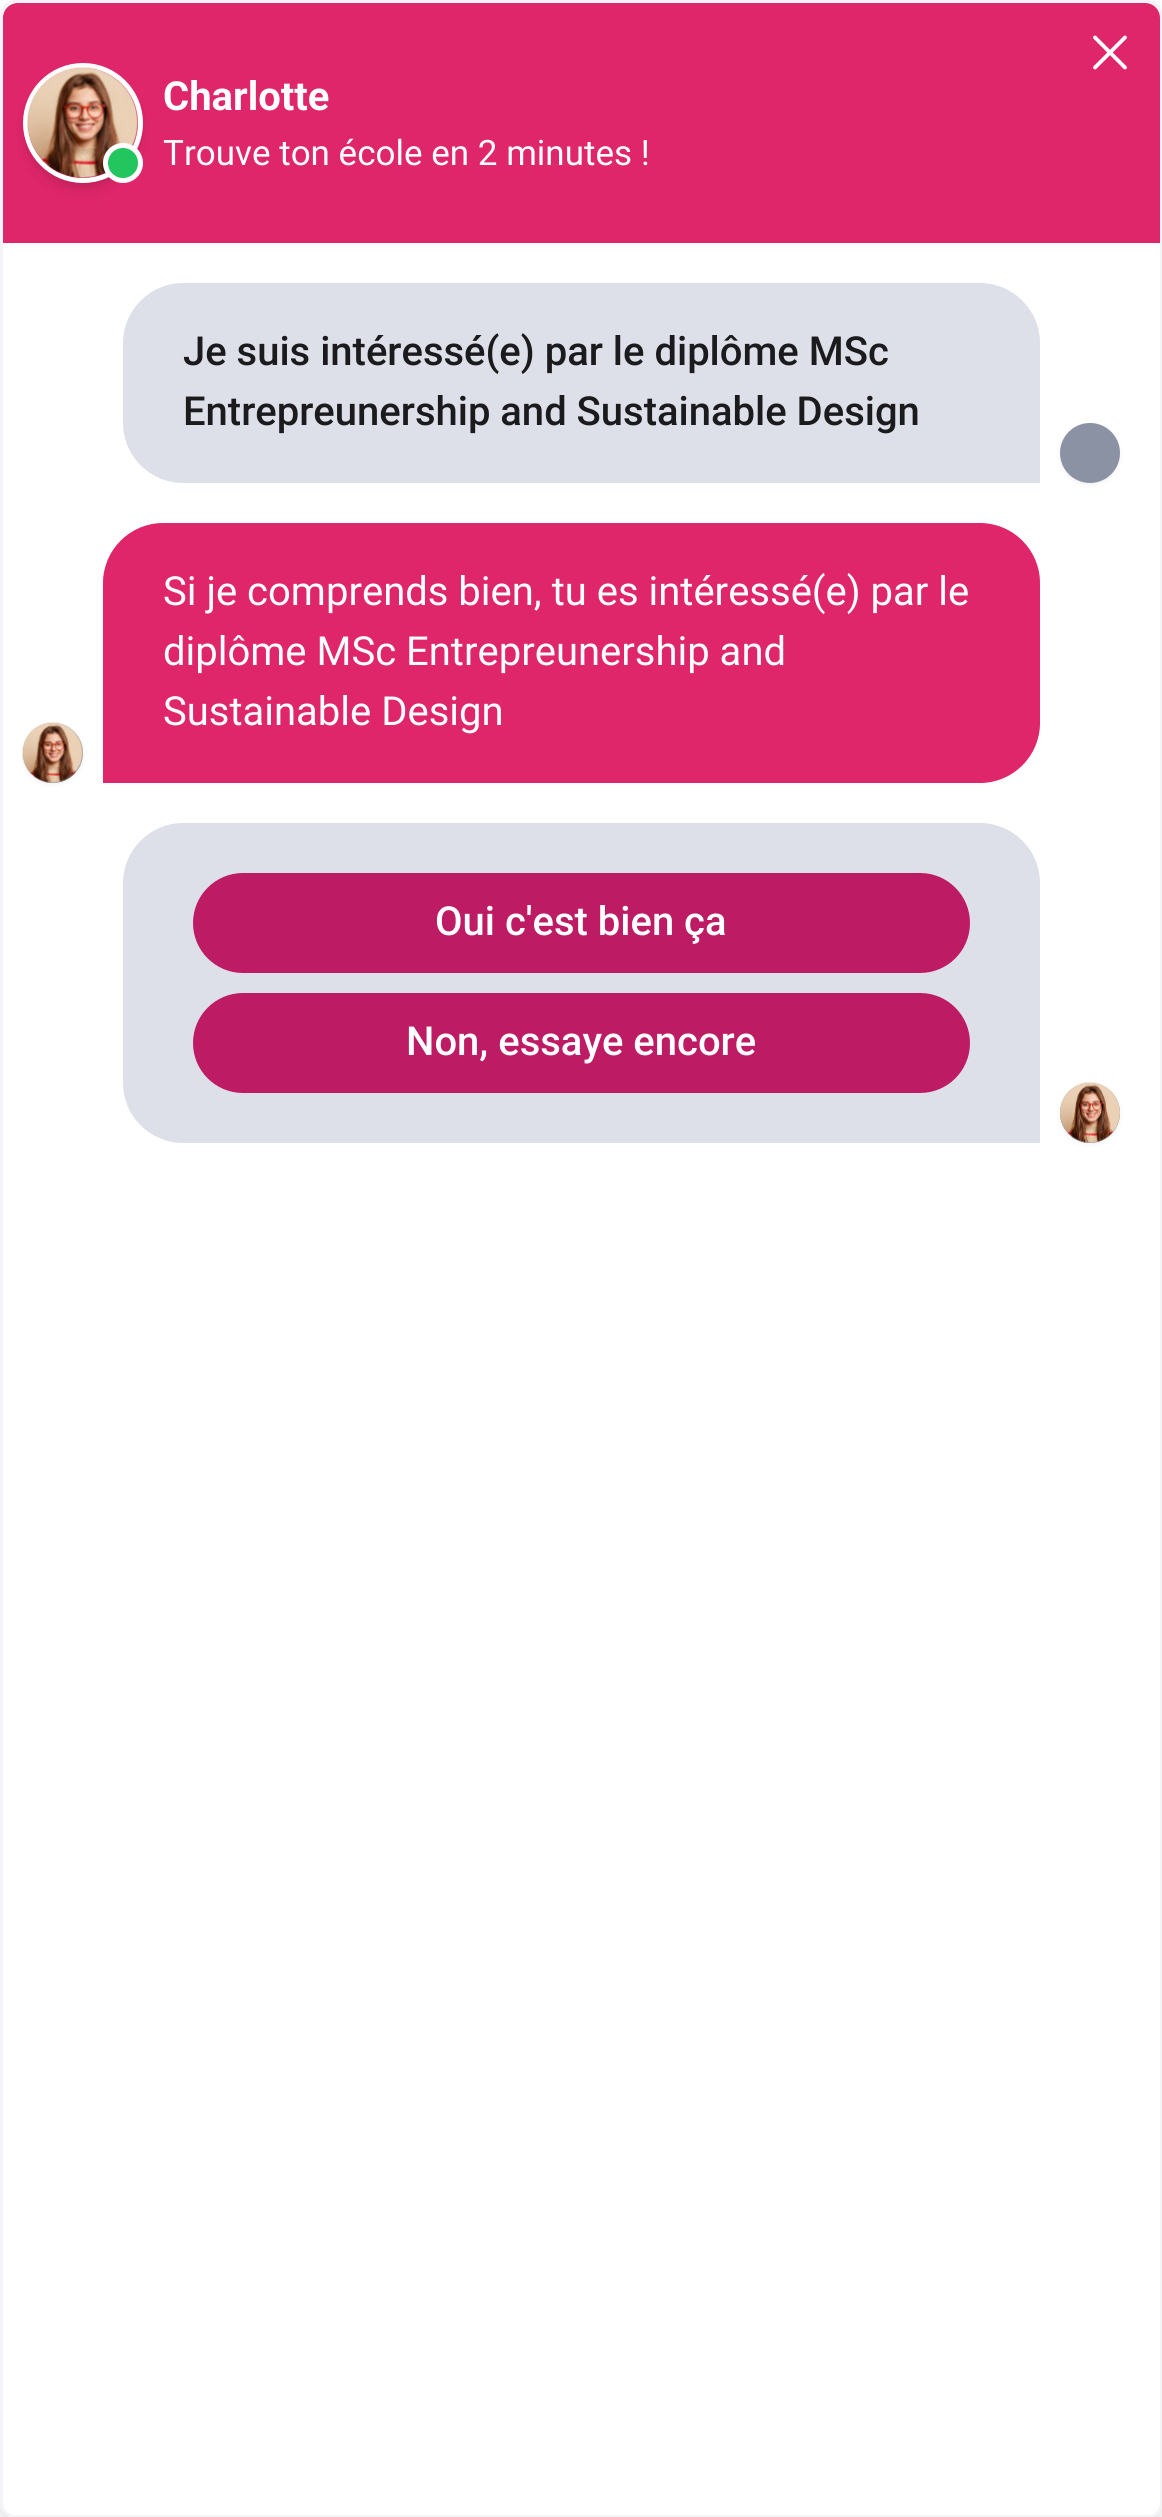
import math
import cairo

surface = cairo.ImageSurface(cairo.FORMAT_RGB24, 1162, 2517)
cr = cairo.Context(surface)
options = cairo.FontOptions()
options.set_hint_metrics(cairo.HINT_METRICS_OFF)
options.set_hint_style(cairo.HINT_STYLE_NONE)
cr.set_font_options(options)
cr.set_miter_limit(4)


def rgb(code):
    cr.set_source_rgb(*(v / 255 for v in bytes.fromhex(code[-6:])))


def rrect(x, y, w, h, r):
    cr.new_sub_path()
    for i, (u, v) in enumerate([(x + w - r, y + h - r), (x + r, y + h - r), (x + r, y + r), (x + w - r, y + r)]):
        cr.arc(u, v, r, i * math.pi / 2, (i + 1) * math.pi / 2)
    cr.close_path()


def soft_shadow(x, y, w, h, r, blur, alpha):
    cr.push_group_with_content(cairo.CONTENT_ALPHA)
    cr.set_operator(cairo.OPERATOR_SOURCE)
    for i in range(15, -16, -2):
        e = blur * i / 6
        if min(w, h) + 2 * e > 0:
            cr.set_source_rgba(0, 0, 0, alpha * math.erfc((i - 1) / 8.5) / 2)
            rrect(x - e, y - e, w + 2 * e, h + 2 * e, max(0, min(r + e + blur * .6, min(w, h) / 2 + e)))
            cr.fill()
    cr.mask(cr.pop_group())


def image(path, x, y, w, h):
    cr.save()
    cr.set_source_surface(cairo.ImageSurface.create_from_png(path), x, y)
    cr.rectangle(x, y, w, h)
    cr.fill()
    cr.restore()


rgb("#fafafa")
cr.paint()
rgb("#ffffff")
cr.rectangle(0, 0, 1162, 15)
cr.fill()
rgb("#000000")
soft_shadow(10, 20, 1143, 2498, 5, 7.5, 0.1)
soft_shadow(8, 33, 1147, 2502, 8, 19, 0.1)
rgb("#ffffff")
rrect(1.5, 1.5, 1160, 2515, 13.5)
cr.fill_preserve()
rgb("#f3f3f8")
cr.set_line_width(3)
cr.stroke()
cr.save()
rrect(3, 3, 1157, 2512, 13)
cr.clip()
rgb("#e0266a")
cr.new_path()
cr.move_to(18, 3)
cr.line_to(1145, 3)
cr.curve_to(1153.5, 3, 1160, 9.5, 1160, 18)
cr.line_to(1160, 243)
cr.line_to(3, 243)
cr.line_to(3, 18)
cr.curve_to(3, 9.5, 9.5, 3, 18, 3)
cr.close_path()
cr.fill()
cr.restore()
rgb("#000000")
soft_shadow(28, 73, 110, 110, 55, 5, 0.1)
soft_shadow(25, 75, 115, 115, 57.5, 7.5, 0.1)
cr.arc(83, 123, 57.5, 0, 2 * math.pi)
rgb("#ffffff")
cr.set_line_width(5)
cr.stroke()
image("img/1.png", 27, 67, 111, 111)
rgb("#22c55e")
cr.arc(123, 163, 17.5, 0, 2 * math.pi)
cr.fill_preserve()
rgb("#ffffff")
cr.stroke()
cr.new_path()
cr.move_to(1095, 67.5)
cr.line_to(1125, 37.5)
cr.move_to(1095, 37.5)
cr.line_to(1125, 67.5)
cr.set_line_width(3.8)
cr.set_line_cap(cairo.LINE_CAP_ROUND)
cr.set_line_join(cairo.LINE_JOIN_ROUND)
cr.stroke()
rgb("#dee0e9")
cr.new_path()
cr.move_to(183, 283)
cr.line_to(980, 283)
cr.curve_to(1013, 283, 1040, 310, 1040, 343)
cr.line_to(1040, 483)
cr.line_to(183, 483)
cr.curve_to(150, 483, 123, 456, 123, 423)
cr.line_to(123, 343)
cr.curve_to(123, 310, 150, 283, 183, 283)
cr.close_path()
cr.fill()
rgb("#000000")
soft_shadow(1060, 425, 60, 60, 30, 2.5, 0.05)
rgb("#8b92a3")
cr.arc(1090, 453, 30, 0, 2 * math.pi)
cr.fill()
rgb("#e0266a")
cr.new_path()
cr.move_to(163, 523)
cr.line_to(980, 523)
cr.curve_to(1013, 523, 1040, 550, 1040, 583)
cr.line_to(1040, 723)
cr.curve_to(1040, 756, 1013, 783, 980, 783)
cr.line_to(103, 783)
cr.line_to(103, 583)
cr.curve_to(103, 550, 130, 523, 163, 523)
cr.close_path()
cr.fill()
rgb("#000000")
soft_shadow(23, 725, 60, 60, 30, 2.5, 0.05)
rgb("#8b92a3")
cr.arc(53, 753, 30, 0, 2 * math.pi)
cr.fill()
image("img/2.png", 22, 722, 61, 61)
rgb("#dee0e9")
cr.new_path()
cr.move_to(183, 823)
cr.line_to(980, 823)
cr.curve_to(1013, 823, 1040, 850, 1040, 883)
cr.line_to(1040, 1143)
cr.line_to(183, 1143)
cr.curve_to(150, 1143, 123, 1116, 123, 1083)
cr.line_to(123, 883)
cr.curve_to(123, 850, 150, 823, 183, 823)
cr.close_path()
cr.fill()
rgb("#be1b65")
rrect(193, 873, 777, 100, 50)
cr.fill()
rrect(193, 993, 777, 100, 50)
cr.fill()
rgb("#000000")
soft_shadow(1060, 1085, 60, 60, 30, 2.5, 0.05)
rgb("#8b92a3")
cr.arc(1090, 1113, 30, 0, 2 * math.pi)
cr.fill()
image("img/3.png", 1060, 1082, 60, 61)
cr.select_font_face("Roboto", cairo.FONT_SLANT_NORMAL, cairo.FONT_WEIGHT_BOLD)
cr.set_font_size(40)
rgb("#ffffff")
cr.move_to(163, 110)
cr.show_text("Charlotte")
cr.select_font_face("Roboto")
cr.set_font_size(35)
cr.move_to(163, 165)
cr.show_text("Trouve ton école en 2 minutes !")
cr.select_font_face("Roboto Medium")
cr.set_font_size(40)
rgb("#1b1b1d")
cr.move_to(183, 365)
cr.show_text("Je suis intéressé(e) par le diplôme MSc")
cr.move_to(183, 425)
cr.show_text("Entrepreunership and Sustainable Design")
cr.select_font_face("Roboto")
rgb("#ffffff")
for x, y, s in [
    (163, 605, "Si je comprends bien, tu es intéressé(e) par le"),
    (163, 665, "diplôme MSc Entrepreunership and"),
    (163, 725, "Sustainable Design"),
]:
    cr.move_to(x, y)
    cr.show_text(s)
cr.select_font_face("Roboto Medium")
cr.move_to(435, 935)
cr.show_text("Oui c'est bien ça")
cr.move_to(406, 1055)
cr.show_text("Non, essaye encore")
surface.write_to_png("page.png")
